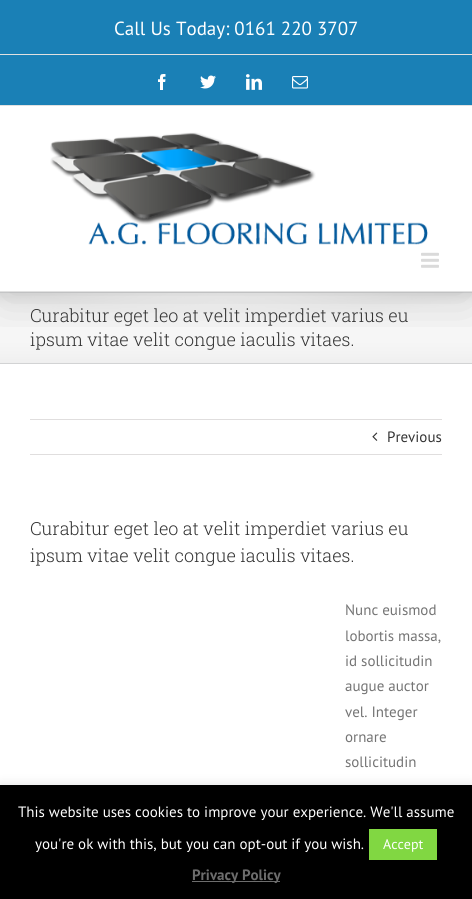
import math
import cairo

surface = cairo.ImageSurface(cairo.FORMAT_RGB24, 472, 899)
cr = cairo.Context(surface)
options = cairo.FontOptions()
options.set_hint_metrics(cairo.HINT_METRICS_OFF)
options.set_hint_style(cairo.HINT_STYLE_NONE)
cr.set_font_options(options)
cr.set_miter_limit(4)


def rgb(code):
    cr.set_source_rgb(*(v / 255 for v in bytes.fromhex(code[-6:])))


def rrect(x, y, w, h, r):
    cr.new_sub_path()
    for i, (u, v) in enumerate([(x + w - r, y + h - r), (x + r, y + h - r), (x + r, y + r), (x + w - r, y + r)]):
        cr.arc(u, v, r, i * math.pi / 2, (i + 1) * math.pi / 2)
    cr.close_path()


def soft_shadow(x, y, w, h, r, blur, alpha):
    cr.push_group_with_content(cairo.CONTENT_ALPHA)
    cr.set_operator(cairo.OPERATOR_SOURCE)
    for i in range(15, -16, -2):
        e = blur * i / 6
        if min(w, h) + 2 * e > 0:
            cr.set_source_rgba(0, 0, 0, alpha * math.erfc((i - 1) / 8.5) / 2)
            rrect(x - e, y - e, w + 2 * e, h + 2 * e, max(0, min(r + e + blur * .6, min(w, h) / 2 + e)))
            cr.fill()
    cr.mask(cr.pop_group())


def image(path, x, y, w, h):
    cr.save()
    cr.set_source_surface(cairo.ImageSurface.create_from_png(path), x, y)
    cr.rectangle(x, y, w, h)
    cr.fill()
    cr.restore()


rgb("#ffffff")
cr.paint()
rgb("#f6f6f6")
cr.rectangle(0, 293, 472, 70)
cr.fill()
image("img/7.png", 0, 293, 472, 70)
rgb("#d2d3d4")
cr.rectangle(0, 292, 472, 1)
cr.fill()
cr.rectangle(0, 363, 472, 1)
cr.fill()
cr.save()
cr.rectangle(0, 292, 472, 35)
cr.clip()
rgb("#000000")
soft_shadow(2, 12, 468, 288, 0, 25, 0.14)
cr.restore()
for x, y, w, h, color in [
    (0, 0, 472, 105, "#1a80b6"),
    (0, 105, 472, 1, "#e1e1e1"),
    (0, 54, 472, 1, "#e1e1e1"),
]:
    rgb(color)
    cr.rectangle(x, y, w, h)
    cr.fill()
image("img/1.png", 158, 74, 8, 16)
image("img/2.png", 200, 75, 16, 14)
image("img/3.png", 246, 74, 16, 16)
image("img/4.png", 292, 76, 16, 13)
cr.rectangle(0, 291, 472, 1)
cr.fill()
image("img/5.png", 50, 132, 378, 113)
image("img/6.png", 421, 252, 18, 16)
rgb("#e0dede")
cr.rectangle(30, 419, 412, 1)
cr.fill()
cr.rectangle(30, 454, 412, 1)
cr.fill()
image("img/8.png", 372, 432, 6, 9)
rgb("#acabab")
soft_shadow(0, 784, 472, 114, 0, 5, 0.3)
for x, y, w, h, color in [
    (0, 785, 472, 114, "#000000"),
    (369, 829, 68, 31, "#81d742"),
    (192, 881, 88, 1, "#6d6d6d"),
]:
    rgb(color)
    cr.rectangle(x, y, w, h)
    cr.fill()
cr.select_font_face("PT Sans")
cr.set_font_size(19)
rgb("#ffffff")
cr.move_to(114, 35)
cr.show_text("Call Us Today: 0161 220 3707")
cr.select_font_face("Roboto Slab Light")
cr.set_font_size(18)
rgb("#333333")
cr.move_to(30, 322)
cr.show_text("Curabitur eget leo at velit imperdiet varius eu")
cr.move_to(30, 346)
cr.show_text("ipsum vitae velit congue iaculis vitaes.")
cr.select_font_face("PT Sans")
cr.set_font_size(15)
cr.move_to(387, 442)
cr.show_text("Previous")
cr.select_font_face("Roboto Slab Light")
cr.set_font_size(18)
cr.move_to(30, 535)
cr.show_text("Curabitur eget leo at velit imperdiet varius eu")
cr.move_to(30, 562)
cr.show_text("ipsum vitae velit congue iaculis vitaes.")
cr.select_font_face("PT Sans")
cr.set_font_size(15)
rgb("#747474")
for x, y, s in [
    (345, 615, "Nunc euismod"),
    (345, 641, "lobortis massa,"),
    (345, 666, "id sollicitudin"),
    (345, 691, "augue auctor"),
    (345, 717, "vel. Integer"),
    (345, 742, "ornare"),
    (345, 767, "sollicitudin"),
]:
    cr.move_to(x, y)
    cr.show_text(s)
rgb("#ffffff")
cr.move_to(18, 817)
cr.show_text("This website uses cookies to improve your experience. We'll assume")
cr.move_to(35, 849)
cr.show_text("you're ok with this, but you can opt-out if you wish.")
cr.set_font_size(14)
cr.move_to(383, 849)
cr.show_text("Accept")
cr.select_font_face("PT Sans", cairo.FONT_SLANT_NORMAL, cairo.FONT_WEIGHT_BOLD)
cr.set_font_size(15)
rgb("#6d6d6d")
cr.move_to(192, 880)
cr.show_text("Privacy Policy")
surface.write_to_png("page.png")
